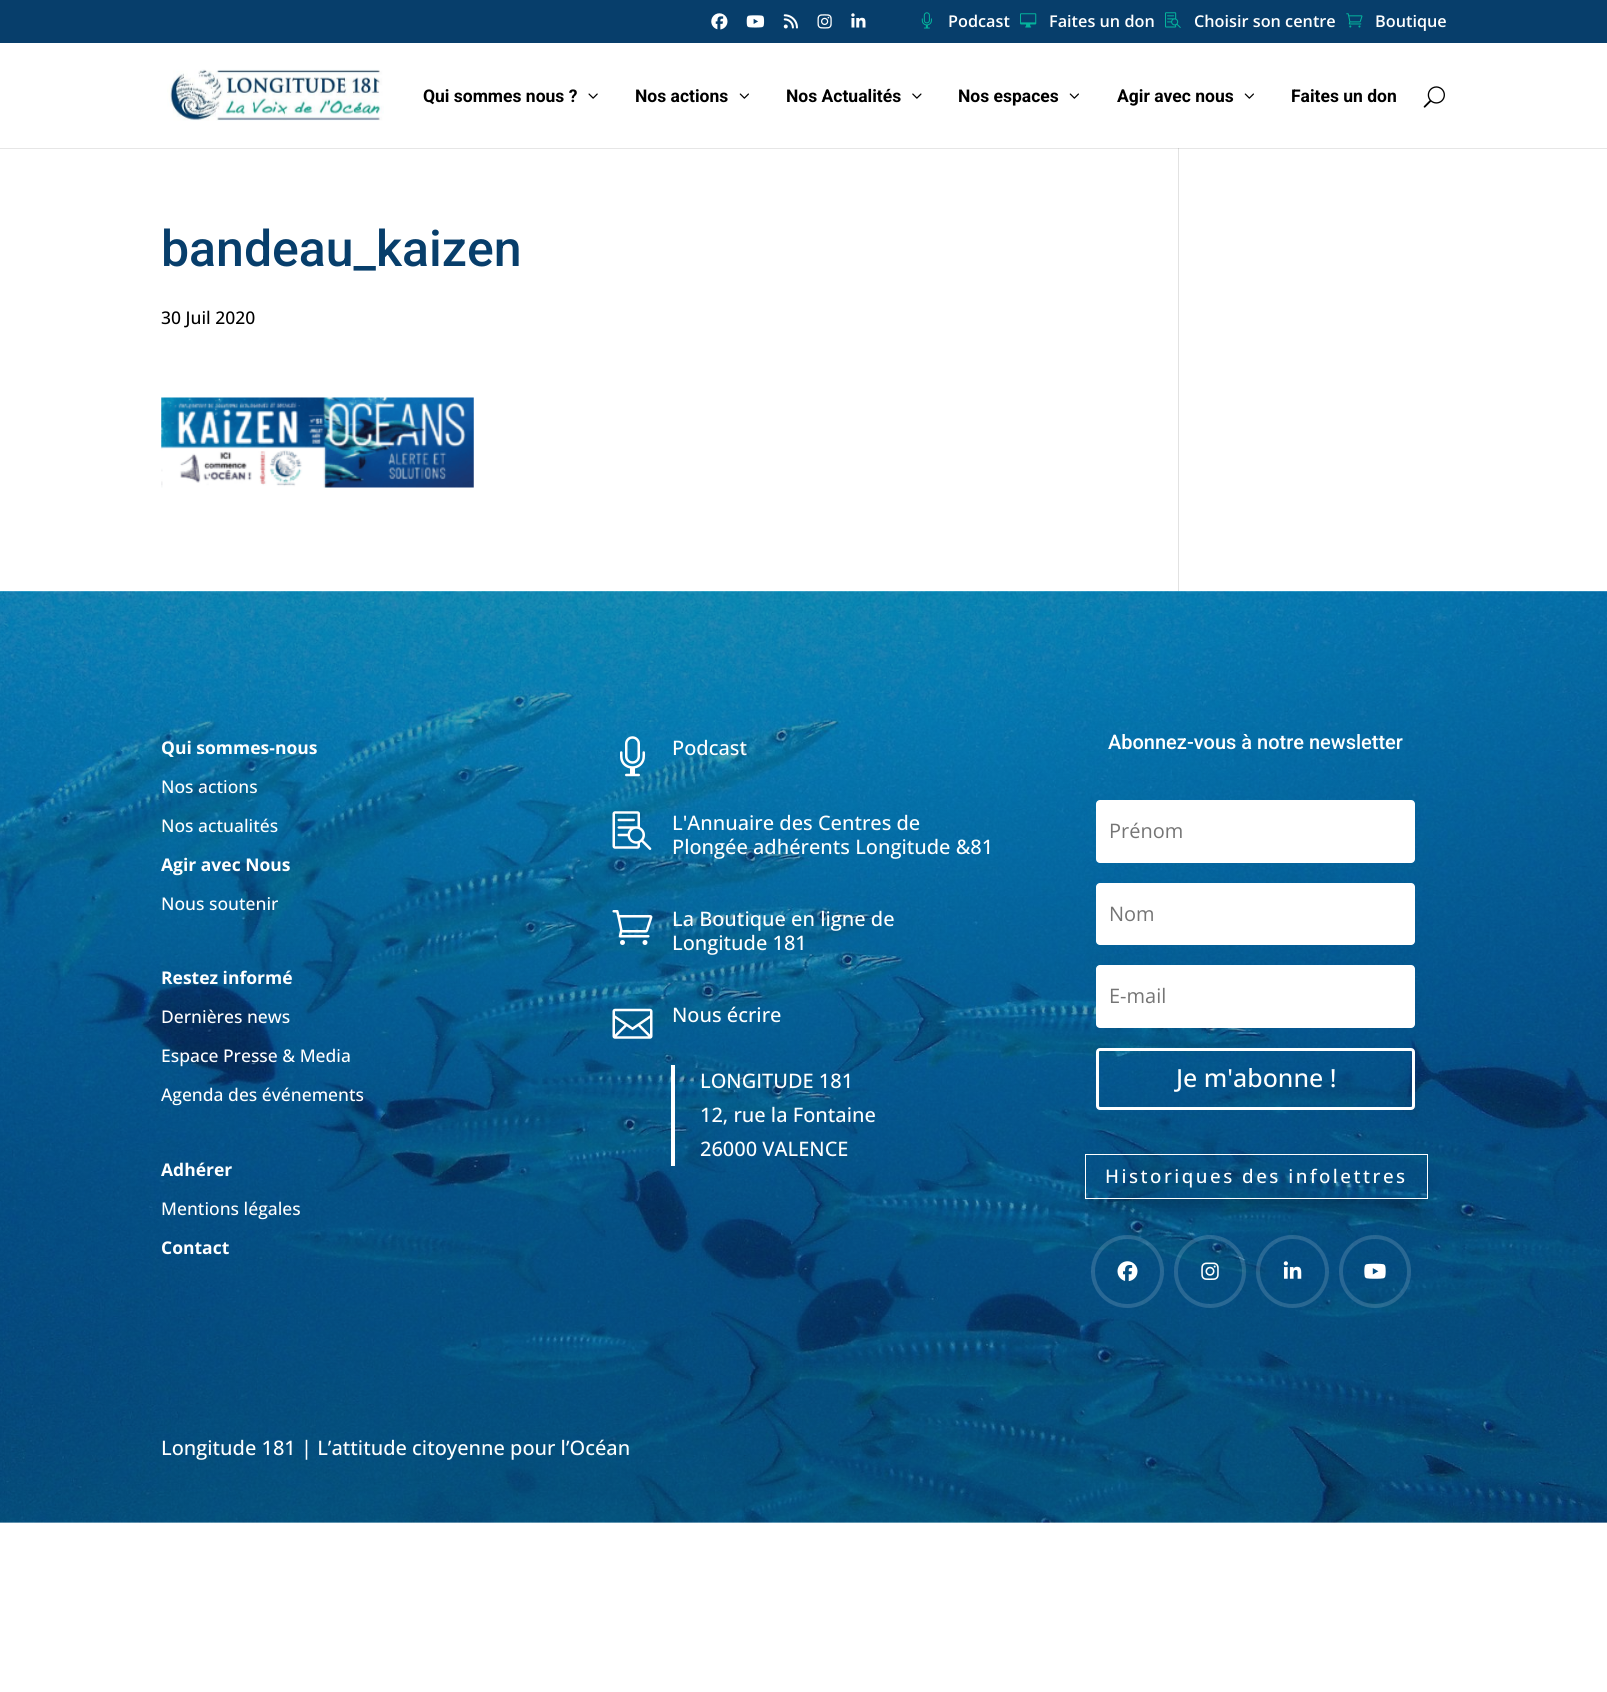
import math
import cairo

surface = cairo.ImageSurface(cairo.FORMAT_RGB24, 1607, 1692)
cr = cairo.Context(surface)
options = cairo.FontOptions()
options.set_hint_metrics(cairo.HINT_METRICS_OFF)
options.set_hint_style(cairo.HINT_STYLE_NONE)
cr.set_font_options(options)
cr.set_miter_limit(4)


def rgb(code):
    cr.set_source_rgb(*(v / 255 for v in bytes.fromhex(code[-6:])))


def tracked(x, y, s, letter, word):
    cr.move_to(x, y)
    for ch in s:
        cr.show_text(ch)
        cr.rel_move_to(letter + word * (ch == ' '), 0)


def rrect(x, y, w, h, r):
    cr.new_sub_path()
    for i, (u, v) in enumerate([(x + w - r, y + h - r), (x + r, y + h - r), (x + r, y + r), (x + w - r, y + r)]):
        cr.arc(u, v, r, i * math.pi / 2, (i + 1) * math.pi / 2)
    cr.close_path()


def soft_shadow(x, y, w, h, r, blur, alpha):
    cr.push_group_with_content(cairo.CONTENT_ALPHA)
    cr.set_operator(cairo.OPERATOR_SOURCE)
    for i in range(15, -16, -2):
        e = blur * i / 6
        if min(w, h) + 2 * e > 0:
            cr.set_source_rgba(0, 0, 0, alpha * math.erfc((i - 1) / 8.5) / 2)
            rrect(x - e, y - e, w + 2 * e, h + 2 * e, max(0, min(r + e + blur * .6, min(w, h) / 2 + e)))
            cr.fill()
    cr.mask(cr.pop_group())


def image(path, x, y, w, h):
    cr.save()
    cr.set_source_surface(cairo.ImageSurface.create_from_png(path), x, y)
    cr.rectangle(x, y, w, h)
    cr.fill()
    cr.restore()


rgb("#ffffff")
cr.paint()
rgb("#073e6b")
cr.rectangle(0, 0, 1607, 43)
cr.fill()
image("img/1.png", 711, 13, 17, 17)
image("img/2.png", 746, 15, 19, 13)
image("img/3.png", 783, 14, 15, 15)
image("img/4.png", 817, 14, 15, 15)
image("img/5.png", 851, 13, 15, 15)
image("img/6.png", 921, 12, 11, 17)
image("img/7.png", 1020, 13, 17, 15)
image("img/8.png", 1165, 12, 16, 16)
image("img/9.png", 1346, 13, 17, 15)
rgb("#e2e2e2")
cr.rectangle(1178, 140, 1, 451)
cr.fill()
cr.set_source_rgba(0, 0, 0, 0.1)
cr.new_path()
cr.move_to(0, 148)
cr.line_to(0, 149)
cr.line_to(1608, 149)
cr.line_to(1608, 44)
cr.line_to(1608, 148)
cr.close_path()
cr.fill()
rgb("#ffffff")
cr.rectangle(1178, 140, 1, 8)
cr.fill()
image("img/10.png", 167, 69, 217, 52)
image("img/11.png", 588, 93, 10, 6)
image("img/12.png", 739, 93, 10, 6)
image("img/13.png", 912, 93, 10, 6)
image("img/12.png", 1069, 93, 10, 6)
image("img/12.png", 1244, 93, 10, 6)
image("img/14.png", 1423, 86, 22, 22)
image("img/15.png", 161, 397, 313, 91)
image("img/16.png", 0, 591, 1607, 932)
image("img/17.png", 620, 736, 25, 41)
image("img/18.png", 612, 811, 40, 39)
image("img/19.png", 612, 910, 41, 35)
image("img/20.png", 612, 1008, 41, 31)
cr.rectangle(671, 1065, 4, 101)
cr.fill()
rrect(1096, 800, 319, 63, 4)
cr.fill()
rrect(1096, 883, 319, 62, 4)
cr.fill()
rrect(1096, 965, 319, 63, 4)
cr.fill()
rrect(1097.5, 1049.5, 316, 59, 2.5)
cr.set_line_width(3)
cr.stroke()
cr.save()
cr.set_fill_rule(cairo.FILL_RULE_EVEN_ODD)
cr.new_path()
cr.move_to(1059, 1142)
cr.line_to(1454, 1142)
cr.line_to(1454, 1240)
cr.line_to(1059, 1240)
cr.close_path()
cr.move_to(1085, 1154)
cr.line_to(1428, 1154)
cr.line_to(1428, 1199)
cr.line_to(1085, 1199)
cr.close_path()
cr.clip()
rgb("#000000")
soft_shadow(1093, 1176, 327, 30, 0, 11, 0.3)
cr.restore()
cr.rectangle(1085.5, 1154.5, 342, 44)
cr.set_line_width(1)
cr.stroke()
cr.arc(1127.5, 1271.5, 34.5, 0, 2 * math.pi)
cr.set_source_rgba(1, 1, 1, 0.15)
cr.set_line_width(4)
cr.stroke()
image("img/21.png", 1117, 1261, 21, 21)
rrect(1176, 1237, 68, 69, 34)
cr.stroke()
image("img/22.png", 1201, 1262, 18, 18)
cr.arc(1292.5, 1271.5, 34.5, 0, 2 * math.pi)
cr.stroke()
image("img/23.png", 1283, 1261, 19, 18)
rrect(1341, 1237, 68, 69, 34)
cr.stroke()
image("img/24.png", 1364, 1263, 22, 16)
cr.select_font_face("Open Sans SemiBold")
cr.set_font_size(16.25)
rgb("#ffffff")
for x, y, s in [
    (948, 27, "Podcast"),
    (1049, 27, "Faites un don"),
    (1194, 27, "Choisir son centre"),
    (1375, 27, "Boutique"),
]:
    cr.move_to(x, y)
    cr.show_text(s)
cr.select_font_face("Roboto", cairo.FONT_SLANT_NORMAL, cairo.FONT_WEIGHT_BOLD)
cr.set_font_size(17.5)
rgb("#000000")
for x, y, s in [
    (423, 102, "Qui sommes nous ?"),
    (635, 102, "Nos actions"),
    (786, 102, "Nos Actualités"),
    (958, 102, "Nos espaces"),
    (1117, 102, "Agir avec nous"),
    (1291, 102, "Faites un don"),
]:
    cr.move_to(x, y)
    cr.show_text(s)
cr.select_font_face("Roboto Medium")
cr.set_font_size(50)
rgb("#073e6b")
cr.move_to(161, 266)
cr.show_text("bandeau_kaizen")
cr.select_font_face("Open Sans Medium")
cr.set_font_size(17.5)
rgb("#000000")
cr.move_to(161, 324)
cr.show_text("30 Juil 2020")
cr.select_font_face("Open Sans", cairo.FONT_SLANT_NORMAL, cairo.FONT_WEIGHT_BOLD)
rgb("#ffffff")
cr.move_to(161, 754)
cr.show_text("Qui sommes-nous")
cr.select_font_face("Open Sans Medium")
cr.move_to(161, 793)
cr.show_text("Nos actions")
cr.move_to(161, 832)
cr.show_text("Nos actualités")
cr.select_font_face("Open Sans", cairo.FONT_SLANT_NORMAL, cairo.FONT_WEIGHT_BOLD)
cr.move_to(161, 871)
cr.show_text("Agir avec Nous")
cr.select_font_face("Open Sans Medium")
cr.move_to(161, 910)
cr.show_text("Nous soutenir")
cr.select_font_face("Open Sans", cairo.FONT_SLANT_NORMAL, cairo.FONT_WEIGHT_BOLD)
cr.move_to(161, 984)
cr.show_text("Restez informé")
cr.select_font_face("Open Sans Medium")
for x, y, s in [
    (161, 1023, "Dernières news"),
    (161, 1062, "Espace Presse & Media"),
    (161, 1101, "Agenda des événements"),
]:
    cr.move_to(x, y)
    cr.show_text(s)
cr.select_font_face("Open Sans", cairo.FONT_SLANT_NORMAL, cairo.FONT_WEIGHT_BOLD)
cr.move_to(161, 1176)
cr.show_text("Adhérer")
cr.select_font_face("Open Sans Medium")
cr.move_to(161, 1215)
cr.show_text("Mentions légales")
cr.select_font_face("Open Sans", cairo.FONT_SLANT_NORMAL, cairo.FONT_WEIGHT_BOLD)
cr.move_to(161, 1254)
cr.show_text("Contact")
cr.select_font_face("Open Sans Medium")
cr.set_font_size(20)
for x, y, s in [
    (672, 755, "Podcast"),
    (672, 830, "L'Annuaire des Centres de"),
    (672, 854, "Plongée adhérents Longitude &81"),
    (672, 926, "La Boutique en ligne de"),
    (672, 950, "Longitude 181"),
    (672, 1022, "Nous écrire"),
    (700, 1088, "LONGITUDE 181"),
    (700, 1122, "12, rue la Fontaine"),
    (700, 1156, "26000 VALENCE"),
]:
    cr.move_to(x, y)
    cr.show_text(s)
cr.select_font_face("Roboto Medium")
cr.move_to(1108, 749)
cr.show_text("Abonnez-vous à notre newsletter")
cr.select_font_face("Open Sans")
rgb("#757575")
for x, y, s in [
    (1109, 838, "Prénom"),
    (1109, 921, "Nom"),
    (1109, 1003, "E-mail"),
]:
    cr.move_to(x, y)
    cr.show_text(s)
cr.select_font_face("Open Sans Medium")
cr.set_font_size(25)
rgb("#ffffff")
cr.move_to(1176, 1087)
cr.show_text("Je m'abonne !")
cr.set_font_size(18.75)
tracked(1105, 1183, "Historiques des infolettres", 2.5, 0)
cr.set_font_size(20)
cr.move_to(161, 1455)
cr.show_text("Longitude 181 | L’attitude citoyenne pour l’Océan")
surface.write_to_png("page.png")
